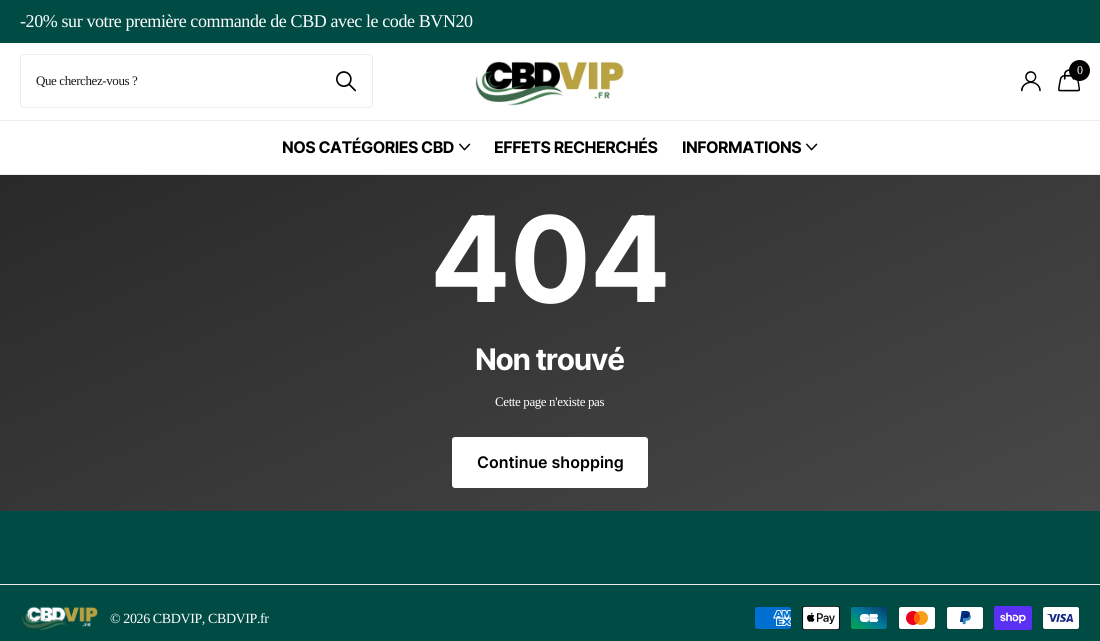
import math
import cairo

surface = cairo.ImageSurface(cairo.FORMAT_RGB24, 1100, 641)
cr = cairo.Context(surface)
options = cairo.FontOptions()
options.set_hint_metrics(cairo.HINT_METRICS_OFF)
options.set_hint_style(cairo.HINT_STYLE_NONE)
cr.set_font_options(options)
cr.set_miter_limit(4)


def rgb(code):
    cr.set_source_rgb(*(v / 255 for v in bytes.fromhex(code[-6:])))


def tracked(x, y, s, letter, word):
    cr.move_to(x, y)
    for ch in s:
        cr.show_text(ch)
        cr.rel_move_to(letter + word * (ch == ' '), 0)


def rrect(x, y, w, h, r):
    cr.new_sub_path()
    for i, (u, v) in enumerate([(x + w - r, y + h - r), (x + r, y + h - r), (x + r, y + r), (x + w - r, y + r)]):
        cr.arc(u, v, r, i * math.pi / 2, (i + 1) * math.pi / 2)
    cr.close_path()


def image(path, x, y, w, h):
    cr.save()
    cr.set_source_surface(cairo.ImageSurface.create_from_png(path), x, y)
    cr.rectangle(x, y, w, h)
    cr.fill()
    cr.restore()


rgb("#ffffff")
cr.paint()
rgb("#004c45")
cr.rectangle(0, 0, 1100, 43)
cr.fill()
image("img/1.png", 475, 61, 149, 45)
image("img/2.png", 1021, 71, 20, 21)
image("img/3.png", 1058, 69, 23, 23)
rgb("#000000")
cr.arc(1079.5, 70.5, 10.5, 0, 2 * math.pi)
cr.fill()
rrect(20.5, 54.5, 352, 53, 3.5)
rgb("#ececec")
cr.set_line_width(1)
cr.stroke()
image("img/4.png", 336, 71, 20, 21)
cr.rectangle(0, 120, 1100, 1)
cr.fill()
image("img/5.png", 459, 143, 12, 8)
image("img/5.png", 806, 143, 12, 8)
cr.rectangle(0, 174, 1100, 1)
cr.fill()
gradient = cairo.LinearGradient(739, 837, 361, -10)
gradient.add_color_stop_rgba(0.04, 0.302, 0.302, 0.302, 1)
gradient.add_color_stop_rgba(1, 0.157, 0.157, 0.157, 1)
cr.set_source(gradient)
cr.rectangle(0, 175, 1100, 336)
cr.fill()
rgb("#ffffff")
rrect(452, 437, 196, 51, 3)
cr.fill()
rgb("#004c45")
cr.rectangle(0, 511, 1100, 130)
cr.fill()
rgb("#ececec")
cr.rectangle(0, 584, 1100, 1)
cr.fill()
image("img/6.png", 22, 606, 76, 24)
image("img/7.png", 754, 606, 38, 24)
image("img/8.png", 802, 606, 38, 24)
image("img/9.png", 850, 606, 38, 24)
image("img/10.png", 898, 606, 38, 24)
image("img/11.png", 946, 606, 38, 24)
image("img/12.png", 994, 606, 38, 24)
image("img/13.png", 1042, 606, 38, 24)
cr.select_font_face("Liberation Serif")
cr.set_font_size(18)
rgb("#ffffff")
tracked(20, 27, "-20% sur votre première commande de CBD avec le code BVN20", -0.4, 0)
cr.set_font_size(12)
cr.move_to(1077, 74)
cr.show_text("0")
cr.set_font_size(13)
rgb("#1a1a1a")
tracked(36, 85, "Que cherchez-vous ?", -0.4, 0)
cr.select_font_face("Inter", cairo.FONT_SLANT_NORMAL, cairo.FONT_WEIGHT_BOLD)
cr.set_font_size(16)
rgb("#000000")
for x, y, s in [
    (282, 153, "NOS CATÉGORIES CBD"),
    (494, 153, "EFFETS RECHERCHÉS"),
    (682, 153, "INFORMATIONS"),
]:
    tracked(x, y, s, -0.5, 0)
cr.set_font_size(119)
rgb("#ffffff")
tracked(430, 302, "404", -1.25, 0)
cr.set_font_size(29.75)
tracked(475, 370, "Non trouvé", -1.25, 0)
cr.select_font_face("Liberation Serif")
cr.set_font_size(13)
tracked(495, 406, "Cette page n'existe pas", -0.4, 0)
cr.select_font_face("Inter SemiBold")
cr.set_font_size(16)
rgb("#000000")
cr.move_to(477, 468)
cr.show_text("Continue shopping")
cr.select_font_face("Liberation Serif")
cr.set_font_size(14)
rgb("#ffffff")
tracked(110, 623, "© 2026 CBDVIP, CBDVIP.fr", -0.4, 0)
surface.write_to_png("page.png")
